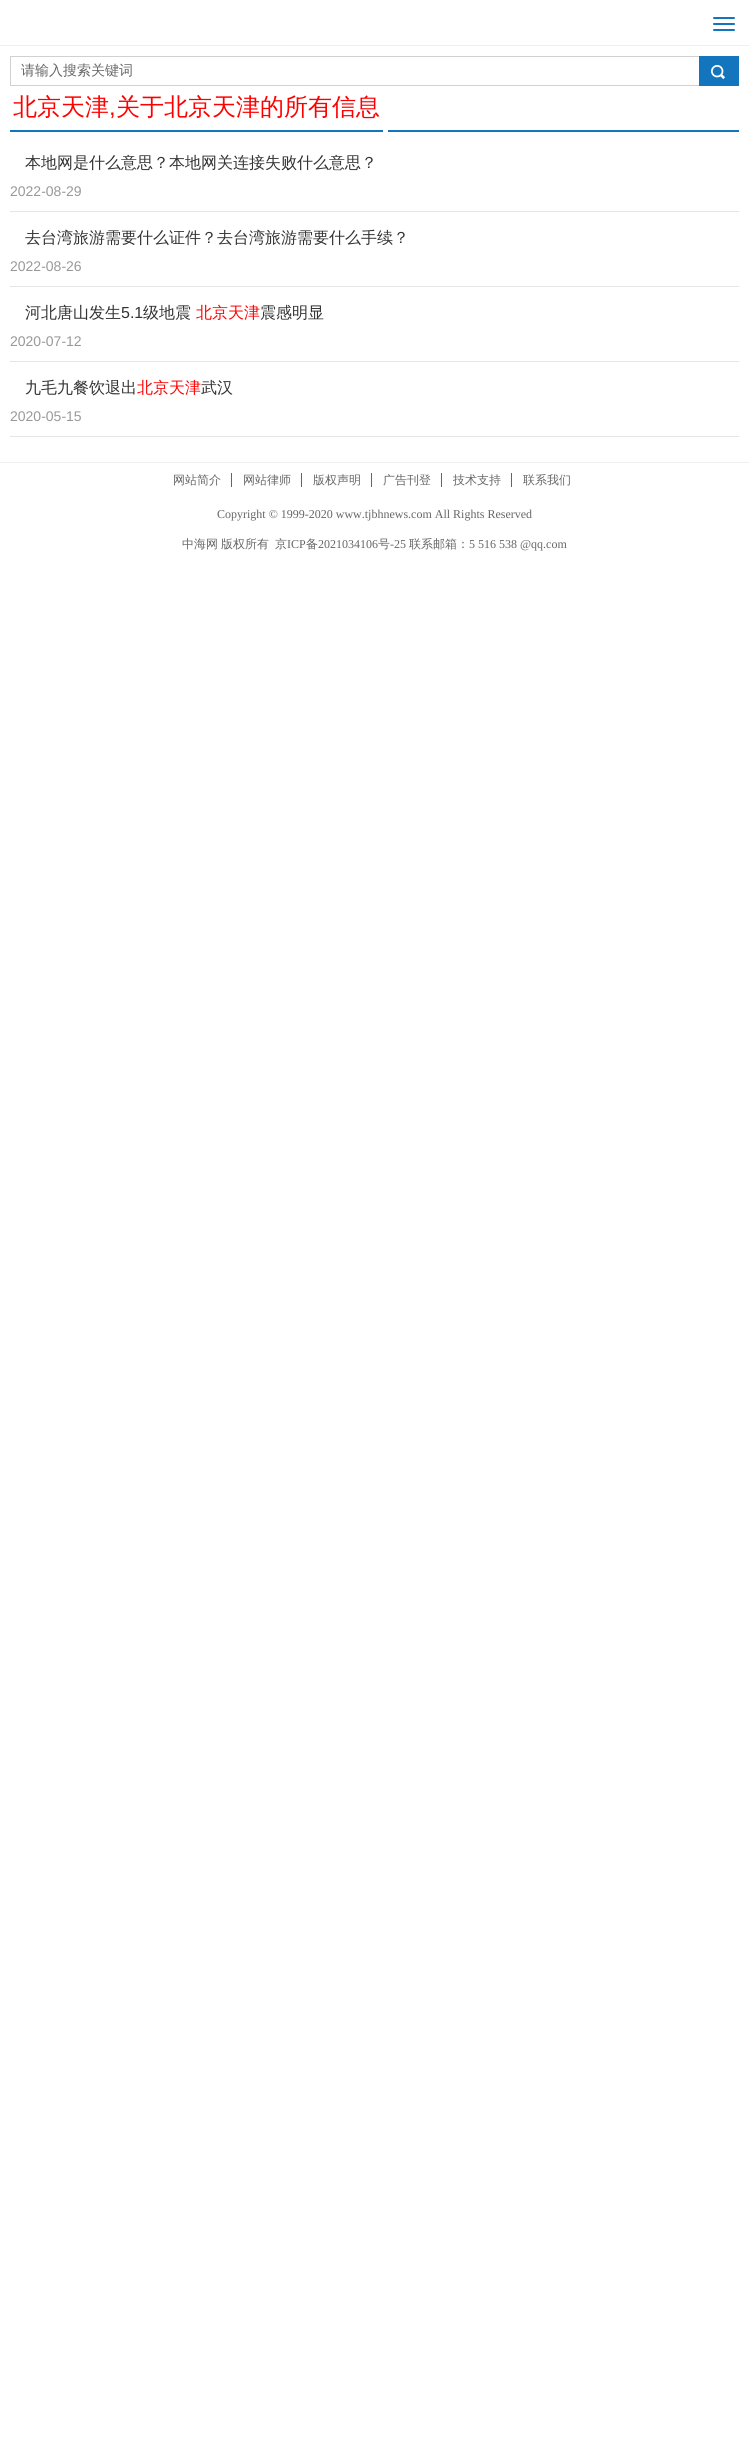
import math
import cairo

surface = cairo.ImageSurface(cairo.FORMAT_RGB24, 749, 2441)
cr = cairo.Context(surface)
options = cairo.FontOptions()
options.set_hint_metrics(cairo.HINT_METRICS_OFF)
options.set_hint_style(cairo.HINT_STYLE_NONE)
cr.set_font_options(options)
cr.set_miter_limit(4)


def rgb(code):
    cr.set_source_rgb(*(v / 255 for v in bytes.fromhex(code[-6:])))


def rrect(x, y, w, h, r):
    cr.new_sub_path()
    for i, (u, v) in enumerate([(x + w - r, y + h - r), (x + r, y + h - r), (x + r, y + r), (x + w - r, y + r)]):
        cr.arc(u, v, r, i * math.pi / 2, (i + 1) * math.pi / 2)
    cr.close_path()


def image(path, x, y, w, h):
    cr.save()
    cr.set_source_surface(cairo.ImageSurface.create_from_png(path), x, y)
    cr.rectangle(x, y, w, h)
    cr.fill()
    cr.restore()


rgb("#ffffff")
cr.paint()
rgb("#1375be")
rrect(713, 17, 22, 2, 1)
cr.fill()
rrect(713, 23, 22, 2, 1)
cr.fill()
rrect(713, 29, 22, 2, 1)
cr.fill()
rgb("#efefef")
cr.rectangle(0, 45, 749, 1)
cr.fill()
cr.rectangle(10.5, 56.5, 728, 29)
rgb("#d1d1d1")
cr.set_line_width(1)
cr.stroke()
rgb("#1375be")
cr.rectangle(699, 56, 40, 30)
cr.fill()
image("img/1.png", 711, 65, 14, 14)
for x, y, w, h, color in [
    (10, 130, 729, 2, "#1375be"),
    (383, 130, 5, 2, "#ffffff"),
    (10, 211, 729, 1, "#e6e6e6"),
    (10, 286, 729, 1, "#e6e6e6"),
    (10, 361, 729, 1, "#e6e6e6"),
    (10, 436, 729, 1, "#e6e6e6"),
    (0, 462, 749, 1, "#efefef"),
    (231, 473, 1, 14, "#666666"),
    (301, 473, 1, 14, "#666666"),
    (371, 473, 1, 14, "#666666"),
    (441, 473, 1, 14, "#666666"),
    (511, 473, 1, 14, "#666666"),
]:
    rgb(color)
    cr.rectangle(x, y, w, h)
    cr.fill()
cr.select_font_face("WenQuanYi Zen Hei Medium")
cr.set_font_size(14)
cr.move_to(21, 75)
cr.show_text("请输入搜索关键词")
cr.set_font_size(24)
rgb("#ff0000")
cr.move_to(13, 115)
cr.show_text("北京天津")
cr.select_font_face("Liberation Sans")
cr.move_to(109, 115)
cr.show_text(",")
cr.select_font_face("WenQuanYi Zen Hei Medium")
cr.move_to(116, 115)
cr.show_text("关于北京天津的所有信息")
cr.set_font_size(16)
rgb("#333333")
cr.move_to(25, 168)
cr.show_text("本地网是什么意思？本地网关连接失败什么意思？")
cr.select_font_face("Liberation Sans")
cr.set_font_size(14)
rgb("#999999")
cr.move_to(10, 196)
cr.show_text("2022-08-29")
cr.select_font_face("WenQuanYi Zen Hei Medium")
cr.set_font_size(16)
rgb("#333333")
cr.move_to(25, 243)
cr.show_text("去台湾旅游需要什么证件？去台湾旅游需要什么手续？")
cr.select_font_face("Liberation Sans")
cr.set_font_size(14)
rgb("#999999")
cr.move_to(10, 271)
cr.show_text("2022-08-26")
cr.select_font_face("WenQuanYi Zen Hei Medium")
cr.set_font_size(16)
rgb("#333333")
cr.move_to(25, 318)
cr.show_text("河北唐山发生")
cr.select_font_face("Liberation Sans")
cr.move_to(121, 318)
cr.show_text("5.1")
cr.select_font_face("WenQuanYi Zen Hei Medium")
cr.move_to(143, 318)
cr.show_text("级地震")
rgb("#ff0000")
cr.move_to(196, 318)
cr.show_text("北京天津")
rgb("#333333")
cr.move_to(260, 318)
cr.show_text("震感明显")
cr.select_font_face("Liberation Sans")
cr.set_font_size(14)
rgb("#999999")
cr.move_to(10, 346)
cr.show_text("2020-07-12")
cr.select_font_face("WenQuanYi Zen Hei Medium")
cr.set_font_size(16)
rgb("#333333")
cr.move_to(25, 393)
cr.show_text("九毛九餐饮退出")
rgb("#ff0000")
cr.move_to(137, 393)
cr.show_text("北京天津")
rgb("#333333")
cr.move_to(201, 393)
cr.show_text("武汉")
cr.select_font_face("Liberation Sans")
cr.set_font_size(14)
rgb("#999999")
cr.move_to(10, 421)
cr.show_text("2020-05-15")
cr.select_font_face("WenQuanYi Zen Hei Medium")
cr.set_font_size(12)
rgb("#666666")
for x, y, s in [
    (173, 484, "网站简介"),
    (243, 484, "网站律师"),
    (313, 484, "版权声明"),
    (383, 484, "广告刊登"),
    (453, 484, "技术支持"),
    (523, 484, "联系我们"),
]:
    cr.move_to(x, y)
    cr.show_text(s)
cr.select_font_face("Liberation Serif")
cr.move_to(217, 518)
cr.show_text("Copyright © 1999-2020 www.tjbhnews.com All Rights Reserved")
cr.select_font_face("WenQuanYi Zen Hei Medium")
for x, y, s in [
    (182, 548, "中海网"),
    (221, 548, "版权所有"),
    (275, 548, "京"),
]:
    cr.move_to(x, y)
    cr.show_text(s)
cr.select_font_face("Liberation Serif")
cr.move_to(287, 548)
cr.show_text("ICP")
cr.select_font_face("WenQuanYi Zen Hei Medium")
cr.move_to(306, 548)
cr.show_text("备")
cr.select_font_face("Liberation Serif")
cr.move_to(318, 548)
cr.show_text("2021034106")
cr.select_font_face("WenQuanYi Zen Hei Medium")
cr.move_to(378, 548)
cr.show_text("号")
cr.select_font_face("Liberation Serif")
cr.move_to(390, 548)
cr.show_text("-25")
cr.select_font_face("WenQuanYi Zen Hei Medium")
cr.move_to(409, 548)
cr.show_text("联系邮箱：")
cr.select_font_face("Liberation Serif")
cr.move_to(469, 548)
cr.show_text("5 516 538 @qq.com")
surface.write_to_png("page.png")
